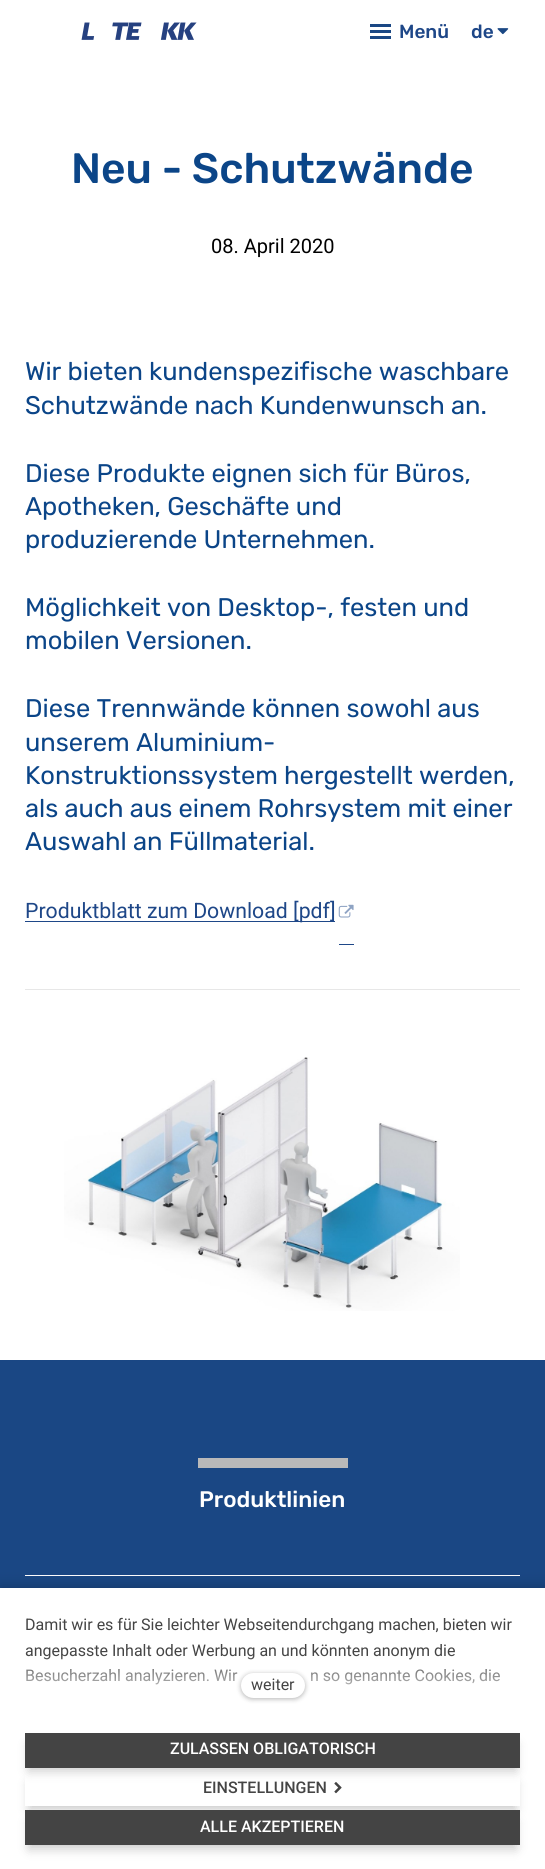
import math
import cairo

surface = cairo.ImageSurface(cairo.FORMAT_RGB24, 545, 1869)
cr = cairo.Context(surface)
options = cairo.FontOptions()
options.set_hint_metrics(cairo.HINT_METRICS_OFF)
options.set_hint_style(cairo.HINT_STYLE_NONE)
cr.set_font_options(options)
cr.set_miter_limit(4)


def rgb(code):
    cr.set_source_rgb(*(v / 255 for v in bytes.fromhex(code[-6:])))


def rrect(x, y, w, h, r):
    cr.new_sub_path()
    for i, (u, v) in enumerate([(x + w - r, y + h - r), (x + r, y + h - r), (x + r, y + r), (x + w - r, y + r)]):
        cr.arc(u, v, r, i * math.pi / 2, (i + 1) * math.pi / 2)
    cr.close_path()


def soft_shadow(x, y, w, h, r, blur, alpha):
    cr.push_group_with_content(cairo.CONTENT_ALPHA)
    cr.set_operator(cairo.OPERATOR_SOURCE)
    for i in range(15, -16, -2):
        e = blur * i / 6
        if min(w, h) + 2 * e > 0:
            cr.set_source_rgba(0, 0, 0, alpha * math.erfc((i - 1) / 8.5) / 2)
            rrect(x - e, y - e, w + 2 * e, h + 2 * e, max(0, min(r + e + blur * .6, min(w, h) / 2 + e)))
            cr.fill()
    cr.mask(cr.pop_group())


def image(path, x, y, w, h):
    cr.save()
    cr.set_source_surface(cairo.ImageSurface.create_from_png(path), x, y)
    cr.rectangle(x, y, w, h)
    cr.fill()
    cr.restore()


rgb("#ffffff")
cr.paint()
image("img/1.png", 81, 22, 116, 18)
for x, y, w, h, color in [
    (370, 30, 21, 3, "#1a4784"),
    (370, 24, 21, 3, "#1a4784"),
    (370, 36, 21, 3, "#1a4784"),
]:
    rgb(color)
    cr.rectangle(x, y, w, h)
    cr.fill()
image("img/2.png", 497, 28, 12, 7)
rgb("#1e4788")
cr.rectangle(25, 921, 310, 1)
cr.fill()
cr.rectangle(339, 944, 15, 1)
cr.fill()
image("img/3.png", 338, 904, 16, 14)
rgb("#e7e7e7")
cr.rectangle(25, 989, 495, 1)
cr.fill()
image("img/4.png", 64, 1057, 396, 254)
for x, y, w, h, color in [
    (0, 1360, 545, 228, "#1a4784"),
    (198, 1458, 150, 10, "#b9b9b9"),
    (25, 1575, 495, 1, "#ffffff"),
]:
    rgb(color)
    cr.rectangle(x, y, w, h)
    cr.fill()
rgb("#000000")
soft_shadow(0, 1588, 545, 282, 0, 7.5, 0.25)
rgb("#ffffff")
cr.rectangle(0, 1588, 545, 281)
cr.fill()
rgb("#000000")
soft_shadow(29, 1744, 487, 27, 0, 5.5, 0.21)
rgb("#444444")
cr.rectangle(25, 1733, 495, 35)
cr.fill()
cr.save()
cr.set_fill_rule(cairo.FILL_RULE_EVEN_ODD)
cr.new_path()
cr.move_to(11, 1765)
cr.line_to(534, 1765)
cr.line_to(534, 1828)
cr.line_to(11, 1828)
cr.close_path()
cr.move_to(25, 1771)
cr.line_to(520, 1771)
cr.line_to(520, 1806)
cr.line_to(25, 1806)
cr.close_path()
cr.clip()
rgb("#000000")
soft_shadow(29, 1783, 487, 27, 0, 5.5, 0.21)
cr.restore()
image("img/5.png", 334, 1782, 8, 12)
rgb("#000000")
soft_shadow(29, 1821, 487, 28, 0, 5.5, 0.21)
rgb("#444444")
cr.rectangle(25, 1810, 495, 35)
cr.fill()
cr.select_font_face("Rubik Medium")
cr.set_font_size(19)
rgb("#1e4788")
cr.move_to(399, 38)
cr.show_text("Menü")
cr.move_to(471, 38)
cr.show_text("de")
cr.set_font_size(42.5)
rgb("#0b4588")
cr.move_to(71, 183)
cr.show_text("Neu - Schutzwände")
cr.select_font_face("Roboto")
cr.set_font_size(20)
rgb("#000000")
cr.move_to(211, 253)
cr.show_text("08. April 2020")
cr.select_font_face("Rubik")
cr.set_font_size(25.5)
rgb("#0b4588")
for x, y, s in [
    (25, 380, "Wir bieten kundenspezifische waschbare"),
    (25, 414, "Schutzwände nach Kundenwunsch an."),
    (25, 482, "Diese Produkte eignen sich für Büros,"),
    (25, 515, "Apotheken, Geschäfte und"),
    (25, 548, "produzierende Unternehmen."),
    (25, 616, "Möglichkeit von Desktop-, festen und"),
    (25, 649, "mobilen Versionen."),
    (25, 717, "Diese Trennwände können sowohl aus"),
    (25, 751, "unserem Aluminium-"),
    (25, 784, "Konstruktionssystem hergestellt werden,"),
    (25, 817, "als auch aus einem Rohrsystem mit einer"),
    (25, 850, "Auswahl an Füllmaterial."),
]:
    cr.move_to(x, y)
    cr.show_text(s)
cr.select_font_face("Roboto")
cr.set_font_size(21.25)
rgb("#1e4788")
cr.move_to(25, 918)
cr.show_text("Produktblatt zum Download [pdf]")
cr.select_font_face("Rubik Medium")
cr.set_font_size(22.5)
rgb("#ffffff")
cr.move_to(199, 1507)
cr.show_text("Produktlinien")
cr.select_font_face("Roboto")
cr.set_font_size(16)
rgb("#444444")
for x, y, s in [
    (25, 1630, "Damit wir es für Sie leichter Webseitendurchgang machen, bieten wir"),
    (25, 1656, "angepasste Inhalt oder Werbung an und könnten anonym die"),
    (25, 1681, "Besucherzahl analyzieren. Wir"),
    (310, 1681, "n so genannte Cookies, die"),
]:
    cr.move_to(x, y)
    cr.show_text(s)
gradient = cairo.LinearGradient(273, 1708, 273, 1654)
gradient.add_color_stop_rgba(0, 1, 1, 1, 1)
gradient.add_color_stop_rgba(1, 1, 1, 1, 0)
cr.set_source(gradient)
cr.rectangle(26, 1655, 474, 30)
cr.fill()
rgb("#000000")
soft_shadow(241, 1674, 64, 25, 12.5, 2.5, 0.3)
rgb("#ffffff")
rrect(241, 1673, 64, 25, 12.5)
cr.fill()
rgb("#444444")
cr.move_to(251, 1690)
cr.show_text("weiter")
cr.select_font_face("Roboto Medium")
rgb("#ffffff")
cr.move_to(170, 1754)
cr.show_text("ZULASSEN OBLIGATORISCH")
rgb("#444444")
cr.move_to(203, 1793)
cr.show_text("EINSTELLUNGEN")
rgb("#ffffff")
cr.move_to(200, 1832)
cr.show_text("ALLE AKZEPTIEREN")
surface.write_to_png("page.png")
